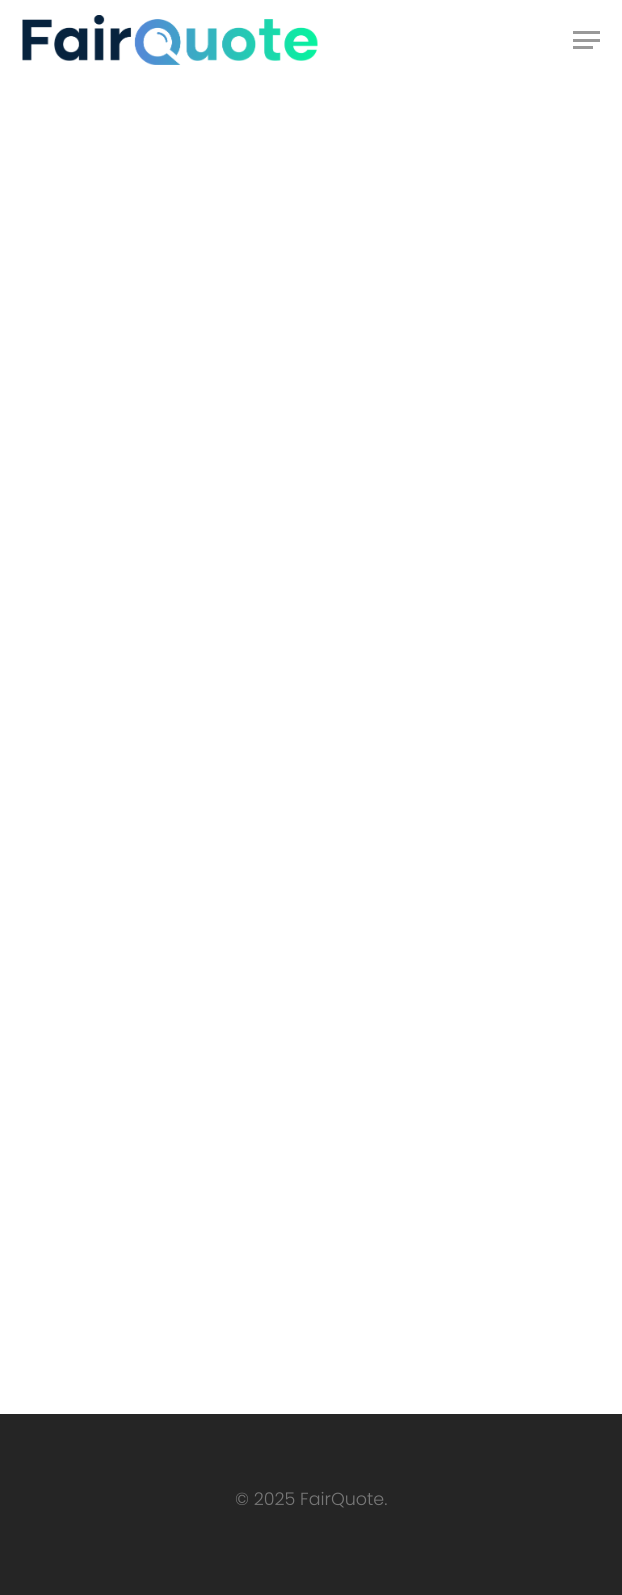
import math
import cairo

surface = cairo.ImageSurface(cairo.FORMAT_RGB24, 622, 1595)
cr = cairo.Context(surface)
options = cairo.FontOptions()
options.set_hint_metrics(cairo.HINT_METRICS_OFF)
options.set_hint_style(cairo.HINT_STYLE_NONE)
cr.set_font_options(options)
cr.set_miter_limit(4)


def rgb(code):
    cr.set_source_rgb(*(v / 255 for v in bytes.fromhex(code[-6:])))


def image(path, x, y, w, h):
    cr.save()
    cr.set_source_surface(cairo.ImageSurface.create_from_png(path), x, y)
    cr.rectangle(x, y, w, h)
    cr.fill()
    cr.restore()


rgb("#ffffff")
cr.paint()
image("img/1.png", 22, 15, 296, 50)
for x, y, w, h, color in [
    (573, 31, 27, 3, "#999999"),
    (573, 46, 20, 3, "#999999"),
    (573, 39, 27, 3, "#999999"),
    (0, 1414, 622, 181, "#252525"),
]:
    rgb(color)
    cr.rectangle(x, y, w, h)
    cr.fill()
cr.select_font_face("Poppins Light")
cr.set_font_size(17.5)
rgb("#777777")
cr.move_to(235, 1505)
cr.show_text("© 2025 FairQuote.")
surface.write_to_png("page.png")
